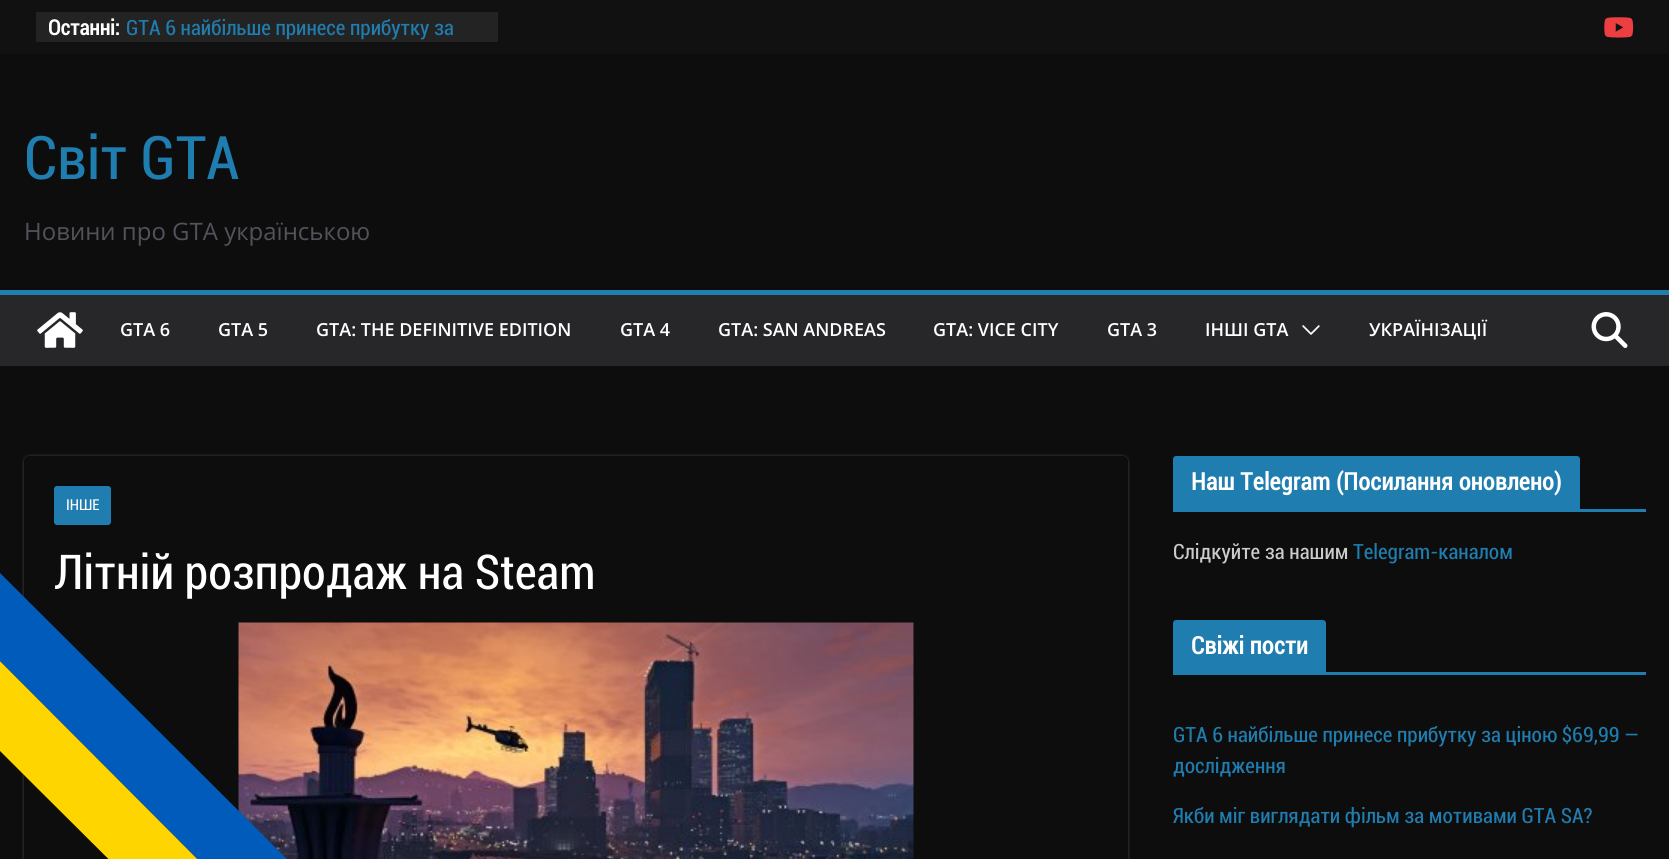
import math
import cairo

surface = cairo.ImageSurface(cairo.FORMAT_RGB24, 1669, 859)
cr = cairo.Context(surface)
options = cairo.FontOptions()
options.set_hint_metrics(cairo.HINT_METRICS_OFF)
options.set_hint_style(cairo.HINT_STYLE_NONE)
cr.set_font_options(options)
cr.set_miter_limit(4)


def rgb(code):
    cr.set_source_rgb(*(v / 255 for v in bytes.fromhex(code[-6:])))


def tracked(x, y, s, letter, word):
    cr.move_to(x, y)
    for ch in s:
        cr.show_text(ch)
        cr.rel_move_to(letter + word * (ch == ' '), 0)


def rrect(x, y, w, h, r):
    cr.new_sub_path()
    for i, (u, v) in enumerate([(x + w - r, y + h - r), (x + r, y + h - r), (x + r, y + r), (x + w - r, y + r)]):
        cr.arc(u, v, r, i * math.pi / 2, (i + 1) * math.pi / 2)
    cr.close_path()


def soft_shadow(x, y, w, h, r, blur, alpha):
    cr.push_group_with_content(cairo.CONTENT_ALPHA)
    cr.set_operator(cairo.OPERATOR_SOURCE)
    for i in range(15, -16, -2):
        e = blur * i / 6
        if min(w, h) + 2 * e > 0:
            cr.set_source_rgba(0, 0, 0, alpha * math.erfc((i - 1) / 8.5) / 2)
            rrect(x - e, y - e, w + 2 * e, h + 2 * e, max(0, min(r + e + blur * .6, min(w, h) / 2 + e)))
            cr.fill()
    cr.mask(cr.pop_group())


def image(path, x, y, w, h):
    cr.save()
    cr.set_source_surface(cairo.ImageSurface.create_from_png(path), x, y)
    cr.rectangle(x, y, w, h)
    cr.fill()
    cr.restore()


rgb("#0d0d0d")
cr.paint()
rgb("#111111")
cr.rectangle(0, 0, 1669, 54)
cr.fill()
rgb("#232323")
cr.rectangle(36, 12, 462, 30)
cr.fill()
image("img/1.png", 1604, 17, 30, 21)
rgb("#27272a")
cr.rectangle(0, 295, 1669, 71)
cr.fill()
rgb("#207daf")
cr.rectangle(0, 290, 1669, 5)
cr.fill()
image("img/2.png", 37, 312, 46, 36)
image("img/3.png", 1302, 325, 18, 10)
image("img/4.png", 1591, 312, 37, 36)
cr.save()
cr.set_fill_rule(cairo.FILL_RULE_EVEN_ODD)
cr.new_path()
cr.move_to(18, 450)
cr.line_to(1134, 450)
cr.line_to(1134, 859)
cr.line_to(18, 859)
cr.close_path()
cr.move_to(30, 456)
cr.line_to(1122, 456)
cr.curve_to(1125.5, 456, 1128, 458.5, 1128, 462)
cr.line_to(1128, 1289)
cr.curve_to(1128, 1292.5, 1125.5, 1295, 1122, 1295)
cr.line_to(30, 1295)
cr.curve_to(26.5, 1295, 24, 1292.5, 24, 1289)
cr.line_to(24, 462)
cr.curve_to(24, 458.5, 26.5, 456, 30, 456)
cr.close_path()
cr.clip()
rgb("#ffffff")
soft_shadow(24, 456, 1104, 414, 6, 1.5, 0.24)
cr.restore()
rrect(54, 486, 57, 39, 3)
cr.fill()
image("img/5.png", 238, 622, 676, 237)
cr.rectangle(1173, 509, 473, 3)
cr.fill()
cr.new_path()
cr.move_to(1176, 456)
cr.line_to(1577, 456)
cr.curve_to(1578.5, 456, 1580, 457.5, 1580, 459)
cr.line_to(1580, 509)
cr.line_to(1173, 509)
cr.line_to(1173, 459)
cr.curve_to(1173, 457.5, 1174.5, 456, 1176, 456)
cr.close_path()
cr.fill()
cr.rectangle(1173, 672, 473, 3)
cr.fill()
cr.new_path()
cr.move_to(1176, 620)
cr.line_to(1323, 620)
cr.curve_to(1324.5, 620, 1326, 621.5, 1326, 623)
cr.line_to(1326, 672)
cr.line_to(1173, 672)
cr.line_to(1173, 623)
cr.curve_to(1173, 621.5, 1174.5, 620, 1176, 620)
cr.close_path()
cr.fill()
cr.select_font_face("Roboto", cairo.FONT_SLANT_NORMAL, cairo.FONT_WEIGHT_BOLD)
cr.set_font_size(21)
rgb("#ffffff")
cr.move_to(48, 35)
cr.show_text("Останні:")
cr.select_font_face("Roboto")
rgb("#207daf")
cr.move_to(126, 35)
cr.show_text("GTA 6 найбільше принесе прибутку за")
cr.set_font_size(60)
cr.move_to(24, 179)
cr.show_text("Світ GTA")
cr.select_font_face("Open Sans")
cr.set_font_size(24)
rgb("#52525b")
cr.move_to(24, 240)
cr.show_text("Новини про GTA українською")
cr.select_font_face("Open Sans SemiBold")
cr.set_font_size(18)
rgb("#ffffff")
for x, y, s in [
    (120, 336, "GTA 6"),
    (218, 336, "GTA 5"),
    (316, 336, "GTA: THE DEFINITIVE EDITION"),
    (620, 336, "GTA 4"),
    (718, 336, "GTA: SAN ANDREAS"),
    (933, 336, "GTA: VICE CITY"),
    (1107, 336, "GTA 3"),
    (1205, 336, "ІНШІ GTA"),
    (1369, 336, "УКРАЇНІЗАЦІЇ"),
]:
    cr.move_to(x, y)
    cr.show_text(s)
cr.select_font_face("Roboto")
cr.set_font_size(15)
cr.move_to(66, 510)
cr.show_text("ІНШЕ")
cr.set_font_size(48)
cr.move_to(54, 589)
cr.show_text("Літній розпродаж на Steam")
cr.select_font_face("Roboto", cairo.FONT_SLANT_NORMAL, cairo.FONT_WEIGHT_BOLD)
cr.set_font_size(24)
tracked(1191, 490, "Наш Telegram (Посилання оновлено)", 0.25, 0)
cr.select_font_face("Roboto")
cr.set_font_size(21)
rgb("#cccccc")
cr.move_to(1173, 559)
cr.show_text("Слідкуйте за нашим")
rgb("#207daf")
cr.move_to(1353, 559)
cr.show_text("Telegram-каналом")
cr.select_font_face("Roboto", cairo.FONT_SLANT_NORMAL, cairo.FONT_WEIGHT_BOLD)
cr.set_font_size(24)
rgb("#ffffff")
tracked(1191, 654, "Свіжі пости", 0.25, 0)
cr.select_font_face("Roboto")
cr.set_font_size(21)
rgb("#207daf")
for x, y, s in [
    (1173, 742, "GTA 6 найбільше принесе прибутку за ціною $69,99 —"),
    (1173, 773, "дослідження"),
    (1173, 823, "Якби міг виглядати фільм за мотивами GTA SA?"),
]:
    cr.move_to(x, y)
    cr.show_text(s)
rgb("#005bbb")
cr.new_path()
cr.move_to(-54, 607)
cr.line_to(-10, 563)
cr.line_to(309, 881)
cr.line_to(264, 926)
cr.close_path()
cr.fill()
rgb("#ffd500")
cr.new_path()
cr.move_to(30, 781)
cr.line_to(-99, 652)
cr.line_to(-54, 607)
cr.line_to(264, 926)
cr.line_to(220, 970)
cr.close_path()
cr.fill()
surface.write_to_png("page.png")
